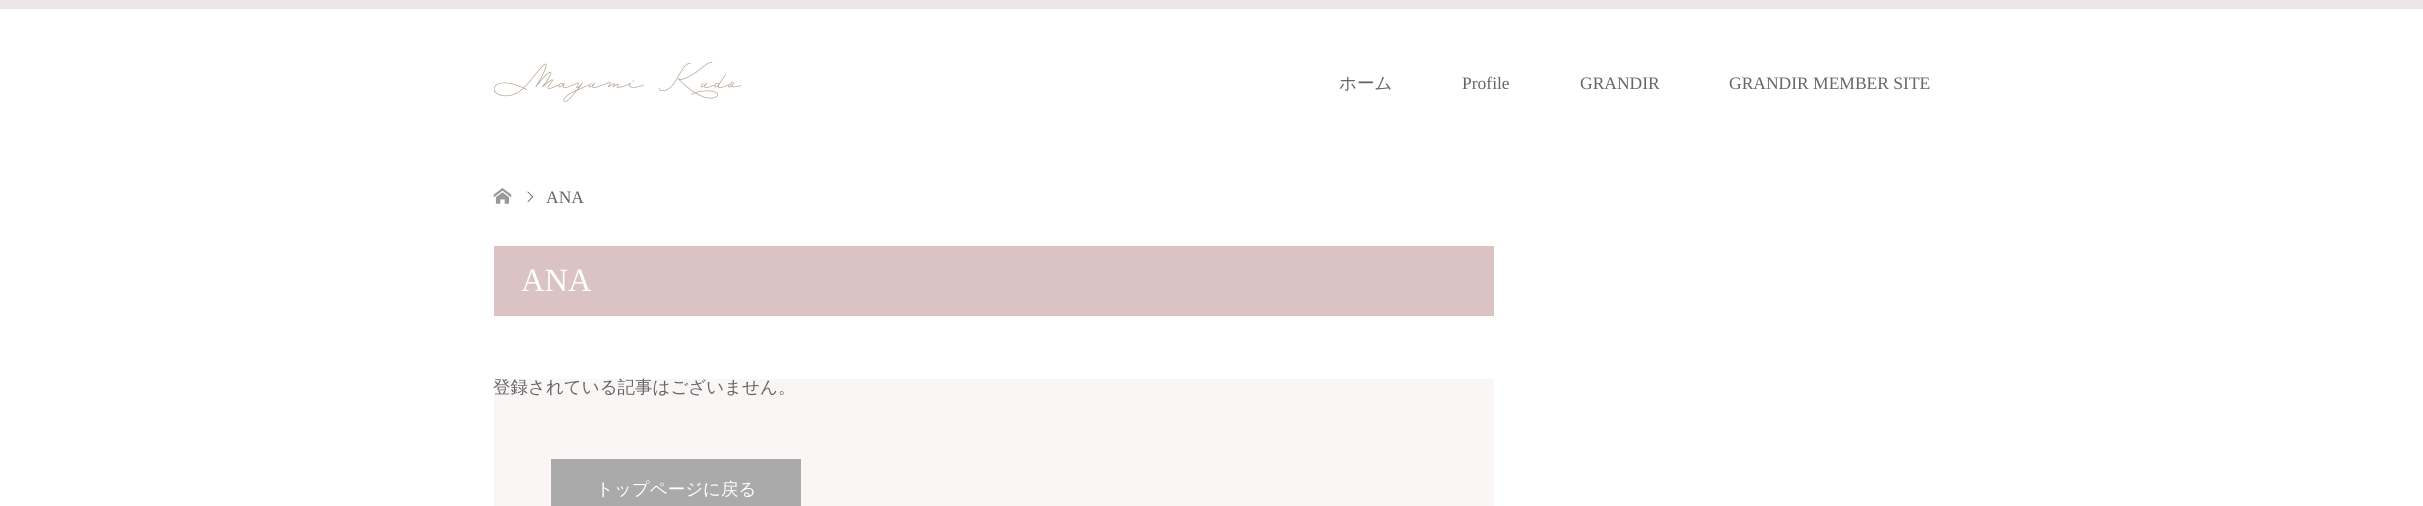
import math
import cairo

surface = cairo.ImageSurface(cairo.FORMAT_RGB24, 2423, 506)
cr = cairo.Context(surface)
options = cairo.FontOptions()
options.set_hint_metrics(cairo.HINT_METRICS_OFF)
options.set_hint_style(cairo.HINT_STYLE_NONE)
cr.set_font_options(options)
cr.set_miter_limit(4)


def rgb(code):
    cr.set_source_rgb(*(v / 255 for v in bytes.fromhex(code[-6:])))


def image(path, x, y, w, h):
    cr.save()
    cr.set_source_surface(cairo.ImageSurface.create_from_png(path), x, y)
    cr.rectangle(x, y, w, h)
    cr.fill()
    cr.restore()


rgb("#ffffff")
cr.paint()
rgb("#ede5e5")
cr.rectangle(0, 0, 2423, 9)
cr.fill()
image("img/1.png", 494, 61, 247, 41)
image("img/2.png", 493, 188, 19, 16)
image("img/3.png", 527, 191, 7, 12)
for x, y, w, h, color in [
    (494, 246, 1000, 70, "#dbc3c3"),
    (494, 379, 1000, 127, "#faf6f6"),
    (551, 459, 250, 47, "#aaaaaa"),
]:
    rgb(color)
    cr.rectangle(x, y, w, h)
    cr.fill()
cr.select_font_face("WenQuanYi Zen Hei Medium")
cr.set_font_size(17.5)
rgb("#666666")
cr.move_to(1339, 89)
cr.show_text("ホーム")
cr.select_font_face("Liberation Serif")
for x, y, s in [
    (1462, 89, "Profile"),
    (1580, 89, "GRANDIR"),
    (1729, 89, "GRANDIR MEMBER SITE"),
    (546, 203, "ANA"),
]:
    cr.move_to(x, y)
    cr.show_text(s)
cr.set_font_size(32.5)
rgb("#ffffff")
cr.move_to(521, 291)
cr.show_text("ANA")
cr.select_font_face("WenQuanYi Zen Hei Medium")
cr.set_font_size(17.5)
rgb("#666666")
cr.move_to(493, 393)
cr.show_text("登録されている記事はございません。")
rgb("#ffffff")
cr.move_to(596, 495)
cr.show_text("トップページに戻る")
surface.write_to_png("page.png")
